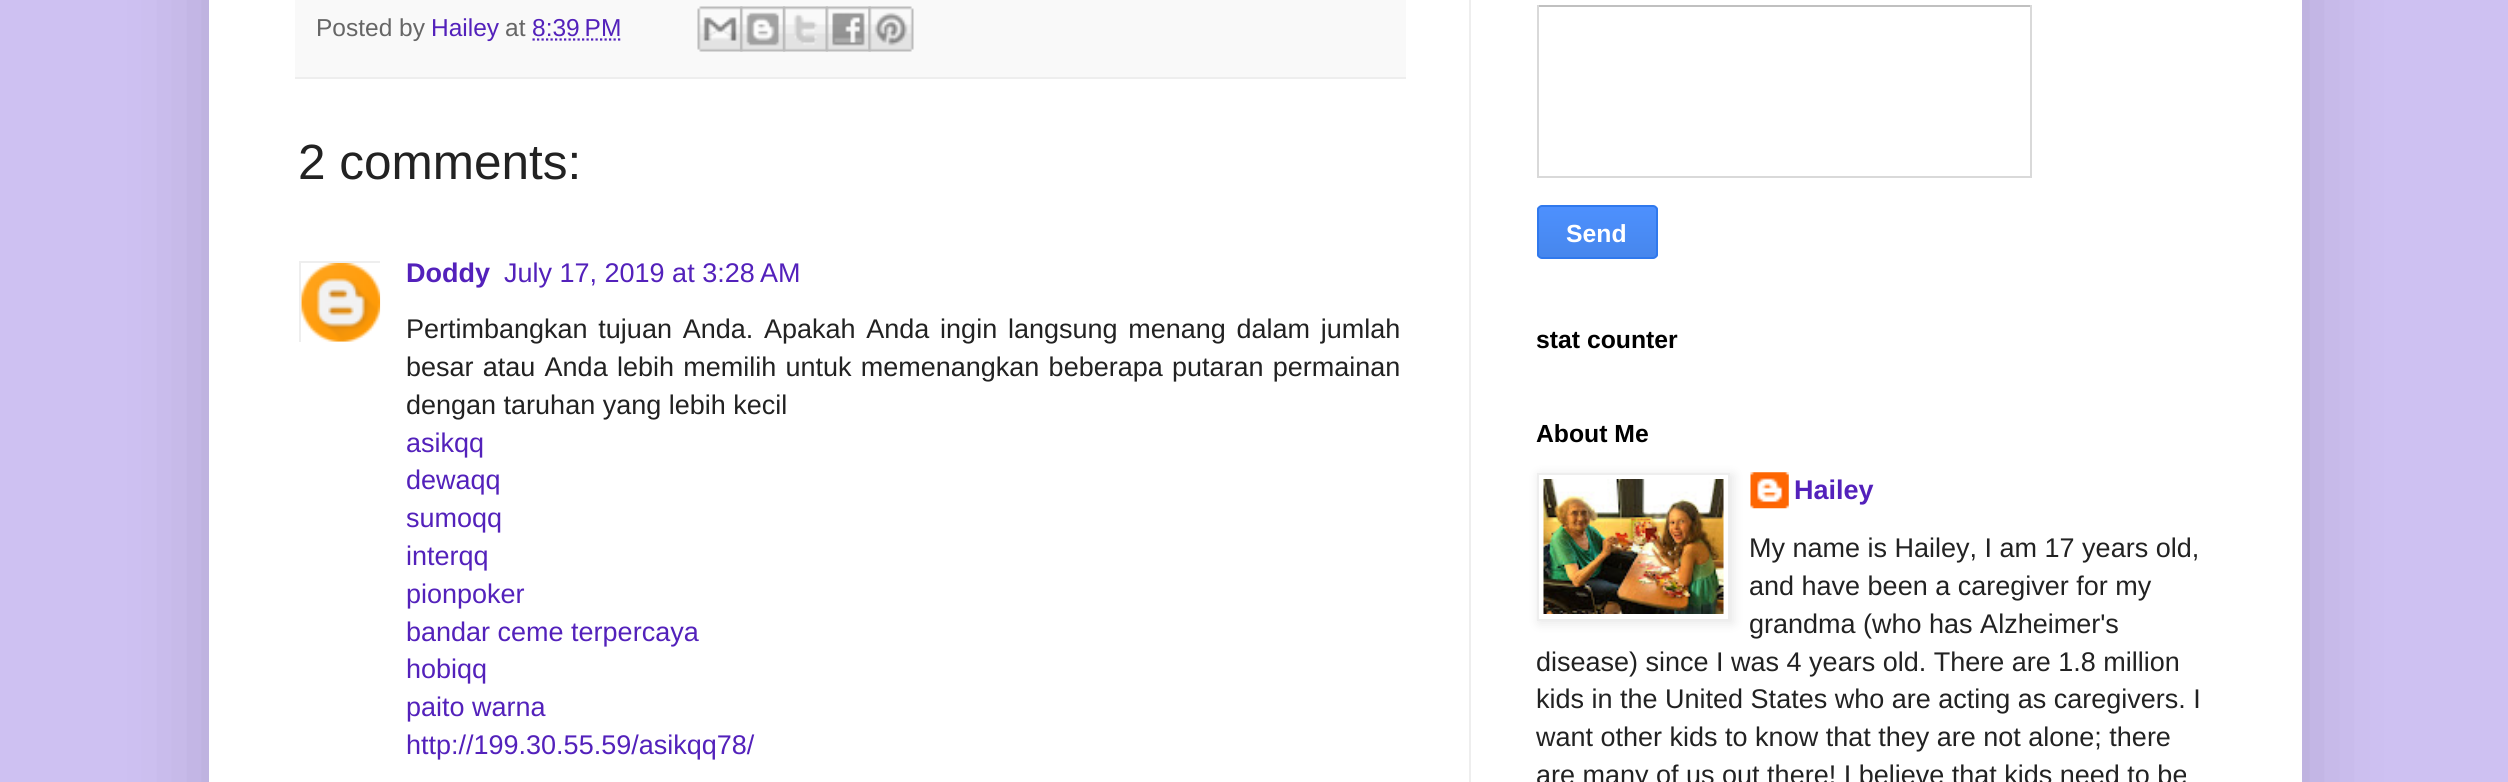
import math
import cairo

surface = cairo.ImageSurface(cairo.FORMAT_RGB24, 2508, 782)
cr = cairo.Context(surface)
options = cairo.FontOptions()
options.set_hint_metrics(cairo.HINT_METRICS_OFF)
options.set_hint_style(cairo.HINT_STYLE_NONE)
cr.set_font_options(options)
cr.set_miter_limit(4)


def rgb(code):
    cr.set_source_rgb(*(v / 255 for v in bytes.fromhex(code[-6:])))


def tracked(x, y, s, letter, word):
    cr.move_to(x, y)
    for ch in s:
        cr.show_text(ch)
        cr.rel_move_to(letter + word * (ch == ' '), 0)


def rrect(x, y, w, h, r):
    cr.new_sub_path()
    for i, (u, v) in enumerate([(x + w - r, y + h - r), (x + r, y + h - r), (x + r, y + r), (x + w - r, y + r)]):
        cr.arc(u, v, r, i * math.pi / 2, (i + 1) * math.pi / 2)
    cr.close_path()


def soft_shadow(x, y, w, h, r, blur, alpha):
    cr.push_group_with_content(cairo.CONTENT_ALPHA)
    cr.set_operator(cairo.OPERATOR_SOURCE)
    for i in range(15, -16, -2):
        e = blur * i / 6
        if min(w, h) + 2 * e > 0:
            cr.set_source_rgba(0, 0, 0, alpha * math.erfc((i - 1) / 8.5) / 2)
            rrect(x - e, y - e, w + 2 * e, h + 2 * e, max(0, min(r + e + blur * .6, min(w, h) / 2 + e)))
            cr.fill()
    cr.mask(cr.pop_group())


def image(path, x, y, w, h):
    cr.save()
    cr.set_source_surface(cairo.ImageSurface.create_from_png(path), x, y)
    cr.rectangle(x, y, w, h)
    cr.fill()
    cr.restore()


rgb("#cec1f2")
cr.paint()
rgb("#000000")
soft_shadow(209, -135, 2093, 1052, 0, 45, 0.15)
for x, y, w, h, color in [
    (209, 0, 2093, 782, "#ffffff"),
    (1469, 0, 2, 782, "#eeeeee"),
    (295, 0, 1111, 77, "#f9f9f9"),
    (295, 77, 1111, 2, "#eeeeee"),
]:
    rgb(color)
    cr.rectangle(x, y, w, h)
    cr.fill()
cr.new_path()
cr.move_to(532.5, 39.5)
cr.line_to(621, 39.5)
rgb("#5321bb")
cr.set_line_width(2.2)
cr.set_dash([2.25, 2.25])
cr.stroke()
image("img/1.png", 697, 6, 46, 46)
image("img/2.png", 740, 6, 46, 46)
image("img/3.png", 783, 6, 45, 46)
image("img/4.png", 825, 6, 46, 46)
image("img/5.png", 868, 6, 46, 46)
cr.save()
cr.rectangle(299, 261, 81, 81)
cr.clip()
cr.rectangle(300, 262, 82, 81)
rgb("#eeeeee")
cr.set_line_width(2)
cr.set_dash([])
cr.stroke()
cr.restore()
image("img/6.png", 301, 263, 80, 79)
for x, y, w, h, color in [
    (1537, 5, 495, 2, "#c0c0c0"),
    (2030, 5, 2, 173, "#d9d9d9"),
    (1537, 176, 495, 2, "#d9d9d9"),
    (1537, 5, 2, 173, "#d9d9d9"),
]:
    rgb(color)
    cr.rectangle(x, y, w, h)
    cr.fill()
cr.save()
rrect(1537, 205, 121, 54, 5)
cr.clip()
gradient = cairo.LinearGradient(1598, 207, 1598, 257)
gradient.add_color_stop_rgba(0, 0.302, 0.565, 0.996, 1)
gradient.add_color_stop_rgba(1, 0.278, 0.529, 0.929, 1)
cr.set_source(gradient)
cr.rectangle(1537, 207, 121, 50)
cr.fill()
cr.restore()
rrect(1538, 206, 119, 52, 4)
rgb("#3079ed")
cr.set_line_width(2)
cr.set_dash([])
cr.stroke()
image("img/8.png", 1750, 472, 39, 37)
cr.save()
cr.set_fill_rule(cairo.FILL_RULE_EVEN_ODD)
cr.new_path()
cr.move_to(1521, 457)
cr.line_to(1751, 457)
cr.line_to(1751, 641)
cr.line_to(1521, 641)
cr.close_path()
cr.move_to(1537, 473)
cr.line_to(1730, 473)
cr.line_to(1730, 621)
cr.line_to(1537, 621)
cr.close_path()
cr.clip()
rgb("#000000")
soft_shadow(1539, 475, 194, 148, 0, 5.5, 0.1)
cr.restore()
cr.rectangle(1538, 474, 191, 146)
rgb("#eeeeee")
cr.stroke()
image("img/7.png", 1543, 479, 181, 135)
cr.select_font_face("Liberation Sans")
cr.set_font_size(24.5)
rgb("#666666")
cr.move_to(316, 36)
cr.show_text("Posted by")
rgb("#5321bb")
cr.move_to(431, 36)
cr.show_text("Hailey")
rgb("#666666")
cr.move_to(505, 36)
cr.show_text("at")
rgb("#5321bb")
cr.move_to(532, 36)
cr.show_text("8:39 PM")
cr.set_font_size(49.5)
rgb("#222222")
cr.move_to(298, 179)
cr.show_text("2 comments:")
cr.select_font_face("Liberation Sans", cairo.FONT_SLANT_NORMAL, cairo.FONT_WEIGHT_BOLD)
cr.set_font_size(27)
rgb("#5321bb")
cr.move_to(406, 282)
cr.show_text("Doddy")
cr.select_font_face("Liberation Sans")
cr.move_to(504, 282)
cr.show_text("July 17, 2019 at 3:28 AM")
rgb("#222222")
tracked(406, 338, "Pertimbangkan tujuan Anda. Apakah Anda ingin langsung menang dalam jumlah", 0, 3.25)
tracked(406, 376, "besar atau Anda lebih memilih untuk memenangkan beberapa putaran permainan", 0, 1.75)
cr.move_to(406, 414)
cr.show_text("dengan taruhan yang lebih kecil")
rgb("#5321bb")
for x, y, s in [
    (406, 452, "asikqq"),
    (406, 489, "dewaqq"),
    (406, 527, "sumoqq"),
    (406, 565, "interqq"),
    (406, 603, "pionpoker"),
    (406, 641, "bandar ceme terpercaya"),
    (406, 678, "hobiqq"),
    (406, 716, "paito warna"),
    (406, 754, "http://199.30.55.59/asikqq78/"),
]:
    cr.move_to(x, y)
    cr.show_text(s)
cr.select_font_face("Liberation Sans", cairo.FONT_SLANT_NORMAL, cairo.FONT_WEIGHT_BOLD)
cr.set_font_size(24.75)
rgb("#ffffff")
cr.move_to(1566, 242)
cr.show_text("Send")
rgb("#000000")
cr.move_to(1536, 348)
cr.show_text("stat counter")
cr.move_to(1536, 442)
cr.show_text("About Me")
cr.set_font_size(27)
rgb("#5321bb")
cr.move_to(1794, 499)
cr.show_text("Hailey")
cr.select_font_face("Liberation Sans")
rgb("#222222")
for x, y, s in [
    (1749, 557, "My name is Hailey, I am 17 years old,"),
    (1749, 595, "and have been a caregiver for my"),
    (1749, 633, "grandma (who has Alzheimer's"),
    (1536, 671, "disease) since I was 4 years old. There are 1.8 million"),
    (1536, 708, "kids in the United States who are acting as caregivers. I"),
    (1536, 746, "want other kids to know that they are not alone; there"),
    (1536, 784, "are many of us out there! I believe that kids need to be"),
]:
    cr.move_to(x, y)
    cr.show_text(s)
surface.write_to_png("page.png")
